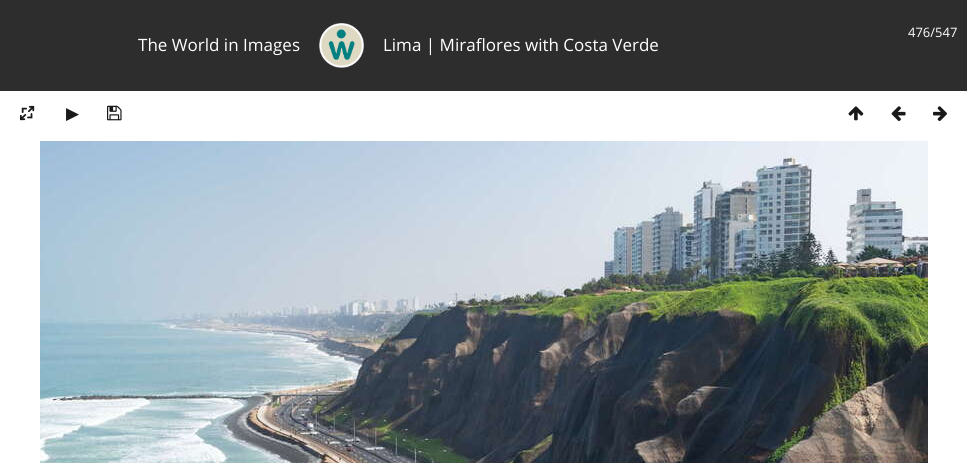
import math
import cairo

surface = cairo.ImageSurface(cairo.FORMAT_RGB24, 967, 463)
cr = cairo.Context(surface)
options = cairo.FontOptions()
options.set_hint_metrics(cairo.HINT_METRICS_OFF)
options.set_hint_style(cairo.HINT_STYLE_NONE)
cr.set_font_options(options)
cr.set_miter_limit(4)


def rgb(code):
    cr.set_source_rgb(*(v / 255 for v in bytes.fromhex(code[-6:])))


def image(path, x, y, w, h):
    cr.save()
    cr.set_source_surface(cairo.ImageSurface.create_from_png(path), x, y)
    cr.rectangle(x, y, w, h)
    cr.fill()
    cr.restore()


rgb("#ffffff")
cr.paint()
rgb("#2d2d2d")
cr.rectangle(0, 0, 967, 91)
cr.fill()
image("img/1.png", 319, 23, 45, 45)
image("img/2.png", 20, 105, 15, 16)
image("img/3.png", 107, 105, 15, 16)
image("img/4.png", 848, 106, 16, 15)
image("img/5.png", 891, 106, 15, 15)
image("img/6.png", 933, 106, 14, 15)
image("img/7.png", 40, 141, 888, 322)
cr.select_font_face("Open Sans")
cr.set_font_size(13)
rgb("#ffffff")
cr.move_to(908, 37)
cr.show_text("476/547")
cr.set_font_size(17)
cr.move_to(138, 51)
cr.show_text("The World in Images")
cr.move_to(383, 51)
cr.show_text("Lima | Miraflores with Costa Verde")
cr.select_font_face("DejaVu Sans")
rgb("#1a1a1a")
cr.move_to(66, 119)
cr.show_text("▶")
surface.write_to_png("page.png")
